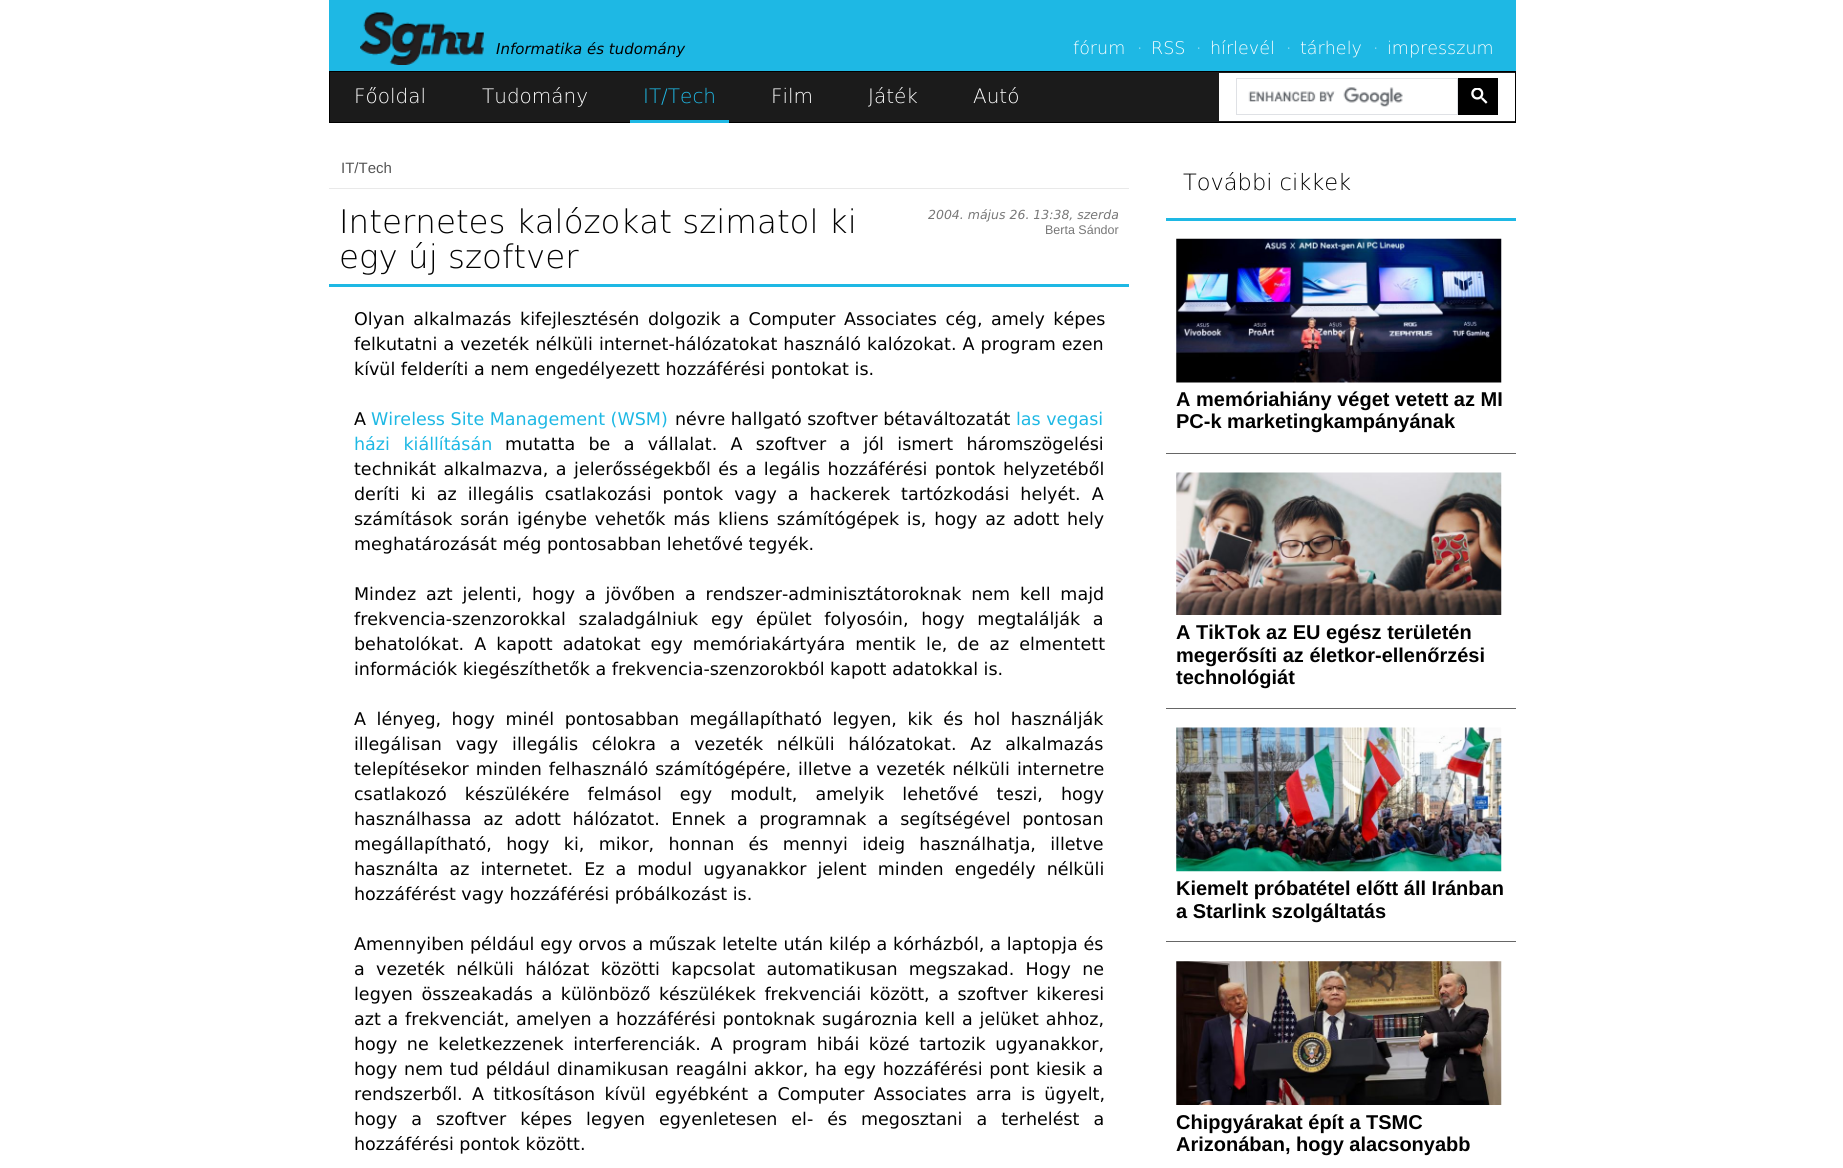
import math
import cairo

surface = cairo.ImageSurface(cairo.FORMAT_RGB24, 1843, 1168)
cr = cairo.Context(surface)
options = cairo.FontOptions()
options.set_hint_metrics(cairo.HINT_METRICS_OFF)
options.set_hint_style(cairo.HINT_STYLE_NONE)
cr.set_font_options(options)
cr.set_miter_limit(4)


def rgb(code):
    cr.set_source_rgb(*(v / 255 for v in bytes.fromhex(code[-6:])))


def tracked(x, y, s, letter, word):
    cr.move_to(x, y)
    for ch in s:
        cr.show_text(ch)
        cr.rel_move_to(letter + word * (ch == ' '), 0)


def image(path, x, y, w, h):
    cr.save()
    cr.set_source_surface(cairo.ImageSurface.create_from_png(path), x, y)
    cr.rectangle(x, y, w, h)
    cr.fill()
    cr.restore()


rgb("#ffffff")
cr.paint()
rgb("#1eb8e4")
cr.rectangle(329, 0, 1187, 71)
cr.fill()
image("img/1.png", 360, 12, 124, 53)
rgb("#1b1b1b")
cr.rectangle(329.5, 71.5, 1186, 51)
cr.fill_preserve()
rgb("#000000")
cr.set_line_width(1)
cr.stroke()
rgb("#1eb8e4")
cr.rectangle(630, 120, 99, 3)
cr.fill()
rgb("#ffffff")
cr.rectangle(1219, 73, 296, 48)
cr.fill()
cr.rectangle(1236.5, 78.5, 221, 36)
rgb("#dfe1e5")
cr.stroke()
image("img/2.png", 1248, 87, 155, 20)
rgb("#000000")
cr.rectangle(1458, 78, 40, 37)
cr.fill()
image("img/3.png", 1471, 88, 17, 16)
for x, y, w, h, color in [
    (329, 188, 800, 1, "#e9e9e9"),
    (329, 284, 800, 3, "#1eb8e4"),
    (1166, 218, 350, 3, "#1eb8e4"),
    (1166, 453, 350, 1, "#666666"),
]:
    rgb(color)
    cr.rectangle(x, y, w, h)
    cr.fill()
image("img/4.png", 1176, 238, 326, 145)
cr.rectangle(1166, 708, 350, 1)
cr.fill()
image("img/5.png", 1176, 472, 326, 143)
cr.rectangle(1166, 941, 350, 1)
cr.fill()
image("img/6.png", 1176, 727, 326, 145)
image("img/7.png", 1176, 961, 326, 144)
cr.select_font_face("DejaVu Sans", cairo.FONT_SLANT_ITALIC)
cr.set_font_size(15)
rgb("#010101")
cr.move_to(496, 54)
cr.show_text("Informatika és tudomány")
cr.select_font_face("DejaVu Sans ExtraLight")
cr.set_font_size(17.5)
rgb("#ffffff")
for x, y, s in [
    (1073, 54, "fórum"),
    (1137, 54, "·"),
    (1151, 54, "RSS"),
    (1196, 54, "·"),
    (1210, 54, "hírlevél"),
    (1286, 54, "·"),
    (1300, 54, "tárhely"),
    (1373, 54, "·"),
    (1387, 54, "impresszum"),
]:
    cr.move_to(x, y)
    cr.show_text(s)
cr.set_font_size(20)
cr.move_to(354, 103)
cr.show_text("Főoldal")
cr.move_to(482, 103)
cr.show_text("Tudomány")
rgb("#1eb8e4")
cr.move_to(643, 103)
cr.show_text("IT/Tech")
rgb("#ffffff")
for x, y, s in [
    (771, 103, "Film"),
    (868, 103, "Játék"),
    (973, 103, "Autó"),
]:
    cr.move_to(x, y)
    cr.show_text(s)
cr.select_font_face("Liberation Sans")
cr.set_font_size(15)
rgb("#555555")
cr.move_to(341, 173)
cr.show_text("IT/Tech")
cr.select_font_face("DejaVu Sans ExtraLight")
cr.set_font_size(32.5)
rgb("#010101")
cr.move_to(339, 233)
cr.show_text("Internetes kalózokat szimatol ki")
cr.move_to(339, 268)
cr.show_text("egy új szoftver")
cr.select_font_face("DejaVu Sans", cairo.FONT_SLANT_ITALIC)
cr.set_font_size(12.5)
rgb("#777777")
cr.move_to(928, 219)
cr.show_text("2004. május 26. 13:38, szerda")
cr.select_font_face("Liberation Sans")
cr.move_to(1045, 234)
cr.show_text("Berta Sándor")
cr.select_font_face("DejaVu Sans")
cr.set_font_size(17.5)
rgb("#010101")
tracked(354, 325, "Olyan alkalmazás kifejlesztésén dolgozik a Computer Associates cég, amely képes", 0, 3)
tracked(354, 350, "felkutatni a vezeték nélküli internet-hálózatokat használó kalózokat. A program ezen", 0, 0.5)
cr.move_to(354, 375)
cr.show_text("kívül felderíti a nem engedélyezett hozzáférési pontokat is.")
cr.move_to(354, 425)
cr.show_text("A")
rgb("#1eb8e4")
cr.move_to(371, 425)
cr.show_text("Wireless Site Management (WSM)")
rgb("#010101")
cr.move_to(675, 425)
cr.show_text("névre hallgató szoftver bétaváltozatát")
rgb("#1eb8e4")
cr.move_to(1016, 425)
cr.show_text("las vegasi")
tracked(354, 450, "házi kiállításán", 0, 8)
rgb("#010101")
tracked(505, 450, "mutatta be a vállalat. A szoftver a jól ismert háromszögelési", 0, 7.75)
tracked(354, 475, "technikát alkalmazva, a jelerősségekből és a legális hozzáférési pontok helyzetéből", 0, 1.9)
tracked(354, 500, "deríti ki az illegális csatlakozási pontok vagy a hackerek tartózkodási helyét. A", 0, 5.5)
tracked(354, 525, "számítások során igénybe vehetők más kliens számítógépek is, hogy az adott hely", 0, 2.25)
cr.move_to(354, 550)
cr.show_text("meghatározását még pontosabban lehetővé tegyék.")
tracked(354, 600, "Mindez azt jelenti, hogy a jövőben a rendszer-adminisztátoroknak nem kell majd", 0, 4.25)
tracked(354, 625, "frekvencia-szenzorokkal szaladgálniuk egy épület folyosóin, hogy megtalálják a", 0, 7.25)
tracked(354, 650, "behatolókat. A kapott adatokat egy memóriakártyára mentik le, de az elmentett", 0, 4.5)
cr.move_to(354, 675)
cr.show_text("információk kiegészíthetők a frekvencia-szenzorokból kapott adatokkal is.")
tracked(354, 725, "A lényeg, hogy minél pontosabban megállapítható legyen, kik és hol használják", 0, 5)
tracked(354, 750, "illegálisan vagy illegális célokra a vezeték nélküli hálózatokat. Az alkalmazás", 0, 8.25)
tracked(354, 775, "telepítésekor minden felhasználó számítógépére, illetve a vezeték nélküli internetre", 0, 1.5)
tracked(354, 800, "csatlakozó készülékére felmásol egy modult, amelyik lehetővé teszi, hogy", 0, 12.5)
tracked(354, 825, "használhassa az adott hálózatot. Ennek a programnak a segítségével pontosan", 0, 6)
tracked(354, 850, "megállapítható, hogy ki, mikor, honnan és mennyi ideig használhatja, illetve", 0, 8.75)
tracked(354, 875, "használta az internetet. Ez a modul ugyanakkor jelent minden engedély nélküli", 0, 5.5)
cr.move_to(354, 900)
cr.show_text("hozzáférést vagy hozzáférési próbálkozást is.")
tracked(354, 950, "Amennyiben például egy orvos a műszak letelte után kilép a kórházból, a laptopja és", 0, 0.25)
tracked(354, 975, "a vezeték nélküli hálózat közötti kapcsolat automatikusan megszakad. Hogy ne", 0, 5.75)
tracked(354, 1000, "legyen összeakadás a különböző készülékek frekvenciái között, a szoftver kikeresi", 0, 3)
tracked(354, 1025, "azt a frekvenciát, amelyen a hozzáférési pontoknak sugároznia kell a jelüket ahhoz,", 0, 1.25)
tracked(354, 1050, "hogy ne keletkezzenek interferenciák. A program hibái közé tartozik ugyanakkor,", 0, 4)
tracked(354, 1075, "hogy nem tud például dinamikusan reagálni akkor, ha egy hozzáférési pont kiesik a", 0, 1.25)
tracked(354, 1100, "rendszerből. A titkosításon kívül egyébként a Computer Associates arra is ügyelt,", 0, 3.75)
tracked(354, 1125, "hogy a szoftver képes legyen egyenletesen el- és megosztani a terhelést a", 0, 8.4)
cr.move_to(354, 1150)
cr.show_text("hozzáférési pontok között.")
cr.select_font_face("DejaVu Sans ExtraLight")
cr.set_font_size(22.5)
cr.move_to(1183, 190)
cr.show_text("További cikkek")
cr.select_font_face("Liberation Sans", cairo.FONT_SLANT_NORMAL, cairo.FONT_WEIGHT_BOLD)
cr.set_font_size(20)
for x, y, s in [
    (1176, 406, "A memóriahiány véget vetett az MI"),
    (1176, 428, "PC-k marketingkampányának"),
    (1176, 639, "A TikTok az EU egész területén"),
    (1176, 662, "megerősíti az életkor-ellenőrzési"),
    (1176, 684, "technológiát"),
    (1176, 895, "Kiemelt próbatétel előtt áll Iránban"),
    (1176, 918, "a Starlink szolgáltatás"),
    (1176, 1129, "Chipgyárakat épít a TSMC"),
    (1176, 1151, "Arizonában, hogy alacsonyabb"),
]:
    cr.move_to(x, y)
    cr.show_text(s)
surface.write_to_png("page.png")
